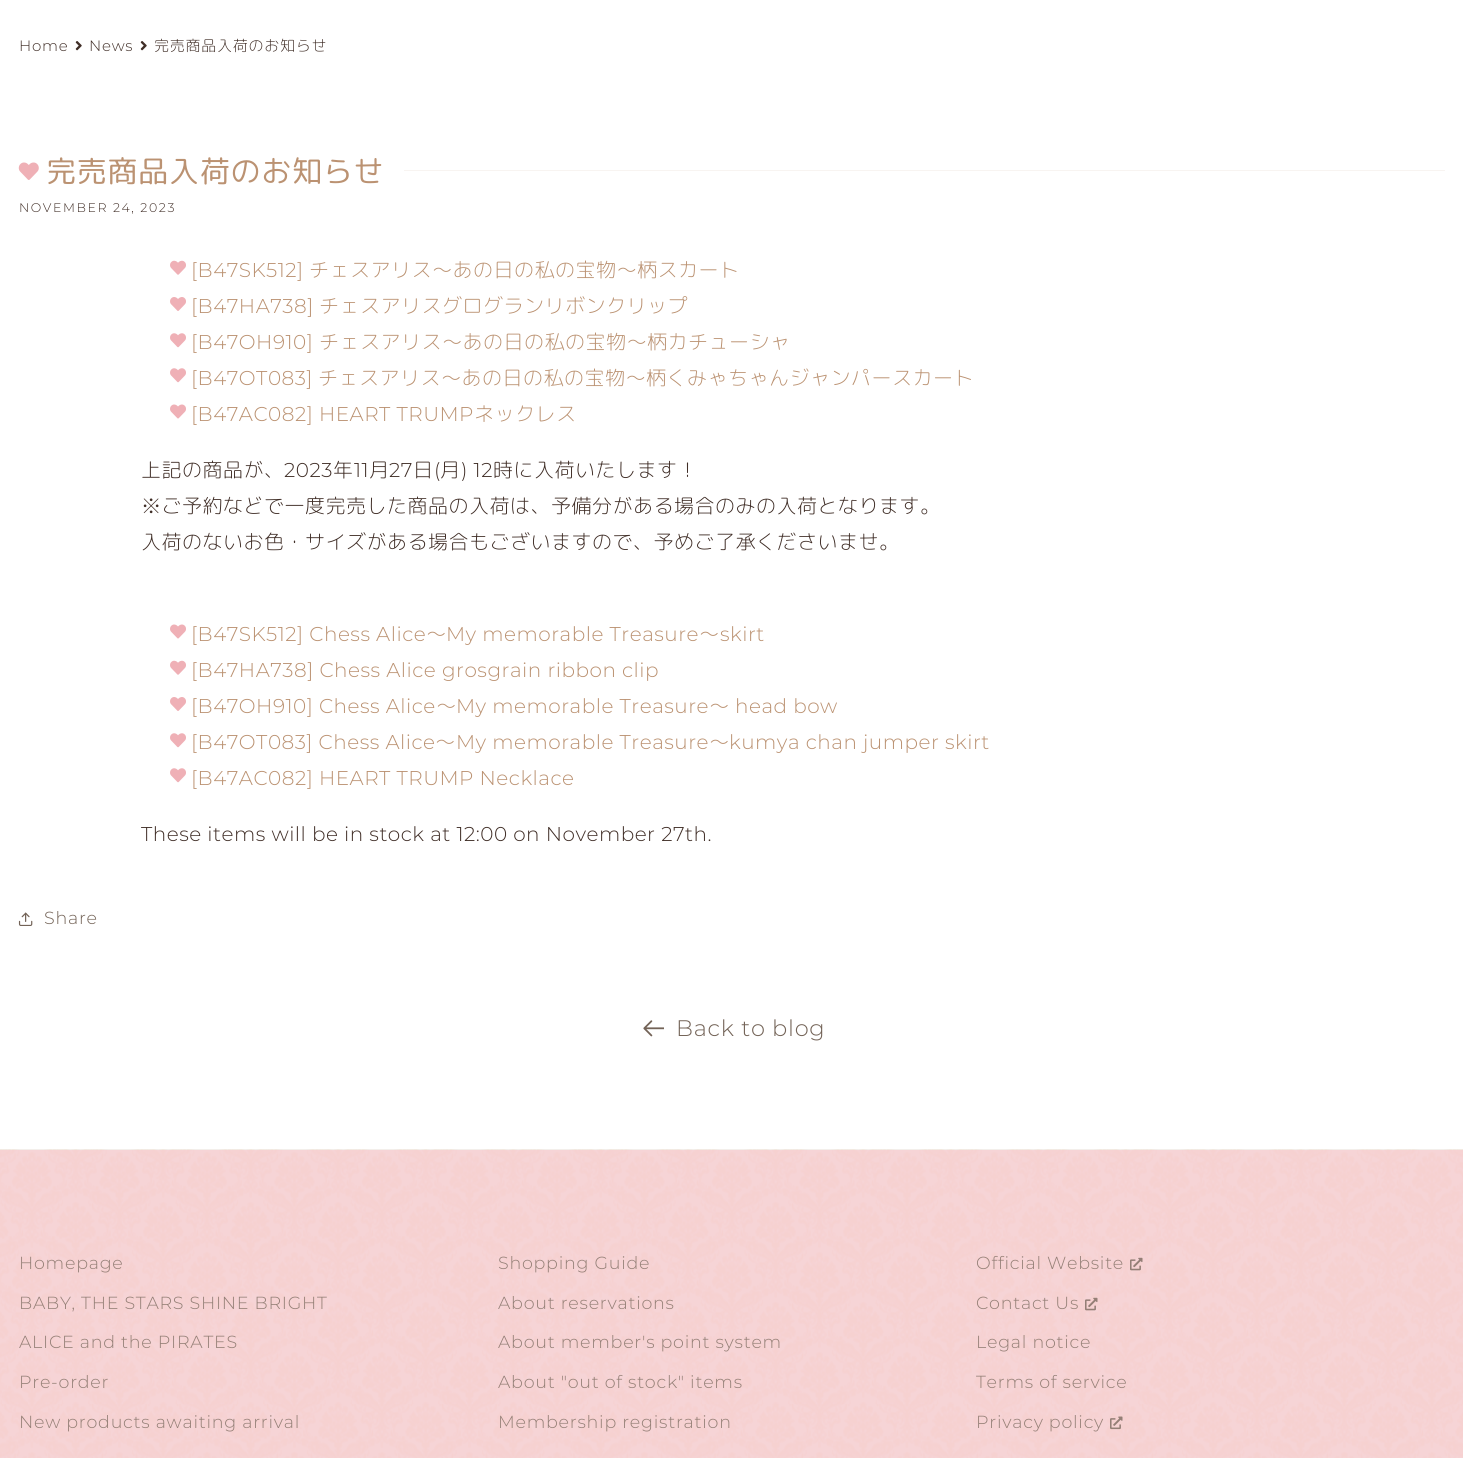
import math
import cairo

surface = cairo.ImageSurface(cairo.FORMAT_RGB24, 1463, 1458)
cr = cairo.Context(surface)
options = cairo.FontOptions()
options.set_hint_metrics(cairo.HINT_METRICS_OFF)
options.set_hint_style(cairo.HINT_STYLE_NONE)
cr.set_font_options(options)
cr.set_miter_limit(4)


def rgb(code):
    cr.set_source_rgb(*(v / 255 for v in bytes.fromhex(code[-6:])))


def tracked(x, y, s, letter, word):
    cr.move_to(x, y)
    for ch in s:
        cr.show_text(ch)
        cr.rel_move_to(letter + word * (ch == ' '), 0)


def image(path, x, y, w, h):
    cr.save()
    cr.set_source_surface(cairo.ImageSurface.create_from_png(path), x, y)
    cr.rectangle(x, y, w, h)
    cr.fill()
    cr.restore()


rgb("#ffffff")
cr.paint()
image("img/1.png", 75, 41, 7, 10)
image("img/1.png", 140, 41, 7, 10)
image("img/2.png", 18, 162, 21, 18)
rgb("#f8f4f1")
cr.rectangle(404, 170, 1041, 1)
cr.fill()
image("img/3.png", 170, 260, 16, 15)
image("img/4.png", 170, 297, 16, 14)
image("img/5.png", 170, 333, 16, 15)
image("img/5.png", 170, 368, 16, 15)
image("img/6.png", 170, 404, 16, 15)
image("img/6.png", 170, 624, 16, 15)
image("img/3.png", 170, 660, 16, 15)
image("img/4.png", 170, 697, 16, 14)
image("img/5.png", 170, 733, 16, 15)
image("img/5.png", 170, 768, 16, 15)
image("img/7.png", 18, 912, 15, 14)
image("img/8.png", 643, 1020, 21, 17)
image("img/9.png", 0, 1149, 1463, 309)
cr.set_source_rgba(0.451, 0.388, 0.341, 0.08)
cr.rectangle(0, 1149, 1463, 1)
cr.fill()
image("img/10.png", 1130, 1257, 13, 14)
image("img/11.png", 1085, 1297, 13, 14)
image("img/12.png", 1110, 1416, 13, 14)
cr.select_font_face("Montserrat Light")
cr.set_font_size(15)
rgb("#402e27")
tracked(19, 51, "Home", 0.75, 0)
tracked(89, 51, "News", 0.75, 0)
cr.select_font_face("Rounded Mplus 1c Light")
tracked(154, 51, "完売商品入荷のお知らせ", 0.75, 0)
cr.select_font_face("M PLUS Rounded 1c")
cr.set_font_size(30)
rgb("#bb9272")
tracked(46, 182, "完売商品入荷のお知らせ", 0.75, 0)
cr.select_font_face("Montserrat Light")
cr.set_font_size(12.5)
rgb("#402e27")
tracked(19, 212, "NOVEMBER 24, 2023", 1.6, 0)
cr.set_font_size(20)
rgb("#bb9272")
tracked(191, 277, "[B47SK512]", 0.5, 0)
cr.select_font_face("Rounded Mplus 1c Light")
tracked(309, 277, "チェスアリス～あの日の私の宝物～柄スカート", 0.5, 0)
cr.select_font_face("Montserrat Light")
tracked(191, 313, "[B47HA738]", 0.5, 0)
cr.select_font_face("Rounded Mplus 1c Light")
tracked(319, 313, "チェスアリスグログランリボンクリップ", 0.5, 0)
cr.select_font_face("Montserrat Light")
tracked(191, 349, "[B47OH910]", 0.5, 0)
cr.select_font_face("Rounded Mplus 1c Light")
tracked(319, 349, "チェスアリス～あの日の私の宝物～柄カチューシャ", 0.5, 0)
cr.select_font_face("Montserrat Light")
tracked(191, 385, "[B47OT083]", 0.5, 0)
cr.select_font_face("Rounded Mplus 1c Light")
tracked(318, 385, "チェスアリス～あの日の私の宝物～柄くみゃちゃんジャンパースカート", 0.5, 0)
cr.select_font_face("Montserrat Light")
tracked(191, 421, "[B47AC082] HEART TRUMP", 0.5, 0)
cr.select_font_face("Rounded Mplus 1c Light")
tracked(474, 421, "ネックレス", 0.5, 0)
rgb("#402e27")
tracked(141, 477, "上記の商品が、", 0.5, 0)
cr.select_font_face("Montserrat Light")
tracked(284, 477, "2023", 0.5, 0)
cr.select_font_face("Rounded Mplus 1c Light")
tracked(333, 477, "年", 0.5, 0)
cr.select_font_face("Montserrat Light")
tracked(354, 477, "11", 0.5, 0)
cr.select_font_face("Rounded Mplus 1c Light")
tracked(369, 477, "月", 0.5, 0)
cr.select_font_face("Montserrat Light")
tracked(389, 477, "27", 0.5, 0)
cr.select_font_face("Rounded Mplus 1c Light")
tracked(413, 477, "日", 0.5, 0)
cr.select_font_face("Montserrat Light")
tracked(434, 477, "(", 0.5, 0)
cr.select_font_face("Rounded Mplus 1c Light")
tracked(440, 477, "月", 0.5, 0)
cr.select_font_face("Montserrat Light")
tracked(461, 477, ") 12", 0.5, 0)
cr.select_font_face("Rounded Mplus 1c Light")
for x, y, s in [
    (493, 477, "時に入荷いたします！"),
    (141, 513, "※ご予約などで一度完売した商品の入荷は、予備分がある場合のみの入荷となります。"),
    (141, 549, "入荷のないお色・サイズがある場合もございますので、予めご了承くださいませ。"),
]:
    tracked(x, y, s, 0.5, 0)
cr.select_font_face("Montserrat Light")
rgb("#bb9272")
tracked(191, 641, "[B47SK512] Chess Alice", 0.5, 0)
cr.select_font_face("Rounded Mplus 1c Light")
tracked(426, 641, "～", 0.5, 0)
cr.select_font_face("Montserrat Light")
tracked(446, 641, "My memorable Treasure", 0.5, 0)
cr.select_font_face("Rounded Mplus 1c Light")
tracked(699, 641, "～", 0.5, 0)
cr.select_font_face("Montserrat Light")
for x, y, s in [
    (720, 641, "skirt"),
    (191, 677, "[B47HA738] Chess Alice grosgrain ribbon clip"),
    (191, 713, "[B47OH910] Chess Alice"),
]:
    tracked(x, y, s, 0.5, 0)
cr.select_font_face("Rounded Mplus 1c Light")
tracked(436, 713, "～", 0.5, 0)
cr.select_font_face("Montserrat Light")
tracked(456, 713, "My memorable Treasure", 0.5, 0)
cr.select_font_face("Rounded Mplus 1c Light")
tracked(709, 713, "～", 0.5, 0)
cr.select_font_face("Montserrat Light")
tracked(735, 713, "head bow", 0.5, 0)
tracked(191, 749, "[B47OT083] Chess Alice", 0.5, 0)
cr.select_font_face("Rounded Mplus 1c Light")
tracked(435, 749, "～", 0.5, 0)
cr.select_font_face("Montserrat Light")
tracked(456, 749, "My memorable Treasure", 0.5, 0)
cr.select_font_face("Rounded Mplus 1c Light")
tracked(709, 749, "～", 0.5, 0)
cr.select_font_face("Montserrat Light")
tracked(729, 749, "kumya chan jumper skirt", 0.5, 0)
tracked(191, 785, "[B47AC082] HEART TRUMP Necklace", 0.5, 0)
rgb("#402e27")
tracked(141, 841, "These items will be in stock at 12:00 on November 27th.", 0.5, 0)
cr.set_font_size(17.5)
rgb("#736357")
tracked(44, 924, "Share", 0.75, 0)
cr.set_font_size(22.5)
tracked(676, 1036, "Back to blog", 0.75, 0)
cr.set_font_size(17.5)
rgb("#947f76")
for x, y, s in [
    (19, 1269, "Homepage"),
    (19, 1309, "BABY, THE STARS SHINE BRIGHT"),
    (19, 1348, "ALICE and the PIRATES"),
    (19, 1388, "Pre-order"),
    (19, 1428, "New products awaiting arrival"),
    (498, 1269, "Shopping Guide"),
    (498, 1309, "About reservations"),
    (498, 1348, "About member's point system"),
    (498, 1388, "About \"out of stock\" items"),
    (498, 1428, "Membership registration"),
    (976, 1269, "Official Website"),
    (976, 1309, "Contact Us"),
    (976, 1348, "Legal notice"),
    (976, 1388, "Terms of service"),
    (976, 1428, "Privacy policy"),
]:
    tracked(x, y, s, 0.75, 0)
surface.write_to_png("page.png")
